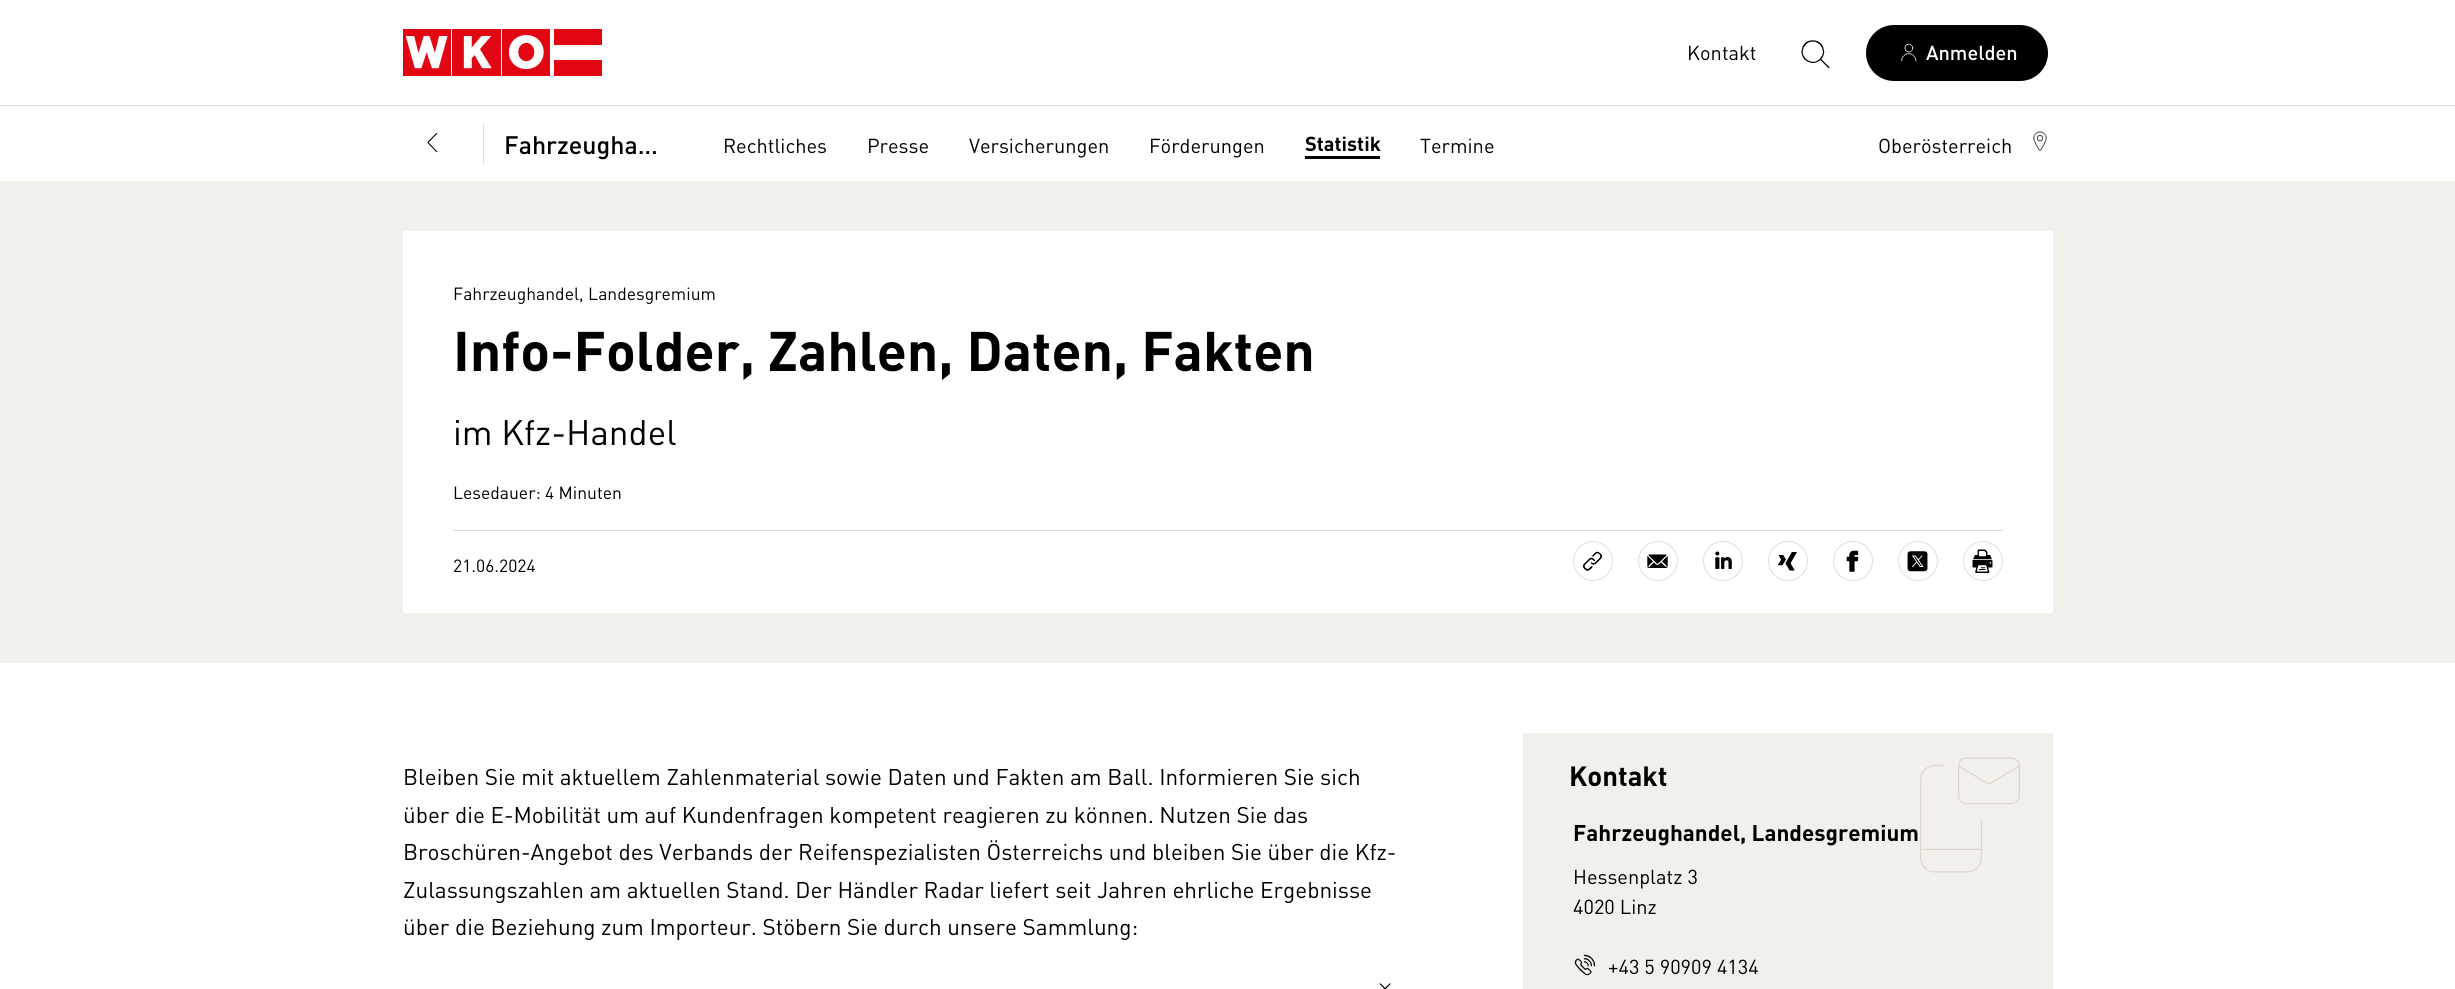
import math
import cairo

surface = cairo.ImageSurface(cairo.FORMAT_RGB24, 2455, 989)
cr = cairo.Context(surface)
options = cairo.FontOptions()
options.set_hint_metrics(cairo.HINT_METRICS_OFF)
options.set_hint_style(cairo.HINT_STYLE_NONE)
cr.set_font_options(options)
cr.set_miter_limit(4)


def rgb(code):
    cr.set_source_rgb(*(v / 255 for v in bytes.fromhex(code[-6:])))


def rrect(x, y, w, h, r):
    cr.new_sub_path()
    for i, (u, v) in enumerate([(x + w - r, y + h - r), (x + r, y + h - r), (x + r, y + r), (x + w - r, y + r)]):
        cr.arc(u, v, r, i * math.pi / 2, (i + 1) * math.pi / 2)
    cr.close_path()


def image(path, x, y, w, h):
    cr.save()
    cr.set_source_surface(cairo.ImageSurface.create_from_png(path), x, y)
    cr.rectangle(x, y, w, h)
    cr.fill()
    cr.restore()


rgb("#ffffff")
cr.paint()
image("img/1.png", 403, 29, 199, 47)
image("img/2.png", 1801, 40, 29, 29)
rgb("#000000")
rrect(1866, 25, 182, 56, 28)
cr.fill()
image("img/3.png", 1901, 43, 16, 19)
rgb("#dddddd")
cr.rectangle(0, 105, 2455, 1)
cr.fill()
image("img/4.png", 427, 132, 11, 21)
cr.rectangle(483, 124, 1, 40)
cr.fill()
rgb("#000000")
cr.rectangle(1305, 156, 75, 3)
cr.fill()
image("img/5.png", 2033, 131, 14, 20)
for x, y, w, h, color in [
    (0, 181, 2455, 482, "#f2f0ea"),
    (403, 231, 1650, 382, "#ffffff"),
    (453, 530, 1550, 1, "#dddddd"),
]:
    rgb(color)
    cr.rectangle(x, y, w, h)
    cr.fill()
cr.arc(1593, 561, 19.5, 0, 2 * math.pi)
cr.set_line_width(1)
cr.stroke()
image("img/6.png", 1582, 551, 20, 20)
cr.arc(1658, 561, 19.5, 0, 2 * math.pi)
cr.stroke()
image("img/7.png", 1647, 554, 21, 14)
cr.arc(1723, 561, 19.5, 0, 2 * math.pi)
cr.stroke()
image("img/8.png", 1715, 551, 17, 18)
cr.arc(1788, 561, 19.5, 0, 2 * math.pi)
cr.stroke()
image("img/9.png", 1778, 552, 19, 19)
cr.arc(1853, 561, 19.5, 0, 2 * math.pi)
cr.stroke()
image("img/10.png", 1846, 550, 13, 22)
cr.arc(1918, 561, 19.5, 0, 2 * math.pi)
cr.stroke()
image("img/11.png", 1907, 551, 21, 21)
cr.arc(1983, 561, 19.5, 0, 2 * math.pi)
cr.stroke()
image("img/12.png", 1972, 549, 21, 24)
image("img/13.png", 1379, 983, 12, 6)
rgb("#f2f0ea")
cr.rectangle(1523, 733, 530, 256)
cr.fill()
image("img/14.png", 1920, 757, 100, 116)
image("img/15.png", 1574, 954, 22, 22)
cr.select_font_face("DIN")
cr.set_font_size(20)
rgb("#000000")
cr.move_to(1687, 60)
cr.show_text("Kontakt")
cr.select_font_face("DIN Medium")
rgb("#ffffff")
cr.move_to(1926, 60)
cr.show_text("Anmelden")
cr.set_font_size(25)
rgb("#000000")
cr.move_to(504, 154)
cr.show_text("Fahrzeugha…")
cr.select_font_face("DIN")
cr.set_font_size(20)
for x, y, s in [
    (723, 153, "Rechtliches"),
    (867, 153, "Presse"),
    (969, 153, "Versicherungen"),
    (1149, 153, "Förderungen"),
]:
    cr.move_to(x, y)
    cr.show_text(s)
cr.select_font_face("DIN", cairo.FONT_SLANT_NORMAL, cairo.FONT_WEIGHT_BOLD)
cr.move_to(1305, 151)
cr.show_text("Statistik")
cr.select_font_face("DIN")
cr.move_to(1420, 153)
cr.show_text("Termine")
cr.move_to(1878, 153)
cr.show_text("Oberösterreich")
cr.set_font_size(17.5)
cr.move_to(453, 300)
cr.show_text("Fahrzeughandel, Landesgremium")
cr.select_font_face("DIN", cairo.FONT_SLANT_NORMAL, cairo.FONT_WEIGHT_BOLD)
cr.set_font_size(55)
cr.move_to(453, 371)
cr.show_text("Info-Folder, Zahlen, Daten, Fakten")
cr.select_font_face("DIN")
cr.set_font_size(35)
cr.move_to(453, 445)
cr.show_text("im Kfz-Handel")
cr.set_font_size(17.5)
cr.move_to(453, 499)
cr.show_text("Lesedauer: 4 Minuten")
cr.move_to(453, 572)
cr.show_text("21.06.2024")
cr.set_font_size(22.5)
for x, y, s in [
    (403, 785, "Bleiben Sie mit aktuellem Zahlenmaterial sowie Daten und Fakten am Ball. Informieren Sie sich"),
    (403, 823, "über die E-Mobilität um auf Kundenfragen kompetent reagieren zu können. Nutzen Sie das"),
    (403, 860, "Broschüren-Angebot des Verbands der Reifenspezialisten Österreichs und bleiben Sie über die Kfz-"),
    (403, 898, "Zulassungszahlen am aktuellen Stand. Der Händler Radar liefert seit Jahren ehrliche Ergebnisse"),
    (403, 935, "über die Beziehung zum Importeur. Stöbern Sie durch unsere Sammlung:"),
]:
    cr.move_to(x, y)
    cr.show_text(s)
cr.select_font_face("DIN", cairo.FONT_SLANT_NORMAL, cairo.FONT_WEIGHT_BOLD)
cr.set_font_size(27.5)
cr.move_to(1569, 786)
cr.show_text("Kontakt")
cr.set_font_size(22.5)
cr.move_to(1573, 841)
cr.show_text("Fahrzeughandel, Landesgremium")
cr.select_font_face("DIN")
cr.set_font_size(20)
for x, y, s in [
    (1573, 884, "Hessenplatz 3"),
    (1573, 914, "4020 Linz"),
    (1608, 974, "+43 5 90909 4134"),
]:
    cr.move_to(x, y)
    cr.show_text(s)
surface.write_to_png("page.png")
